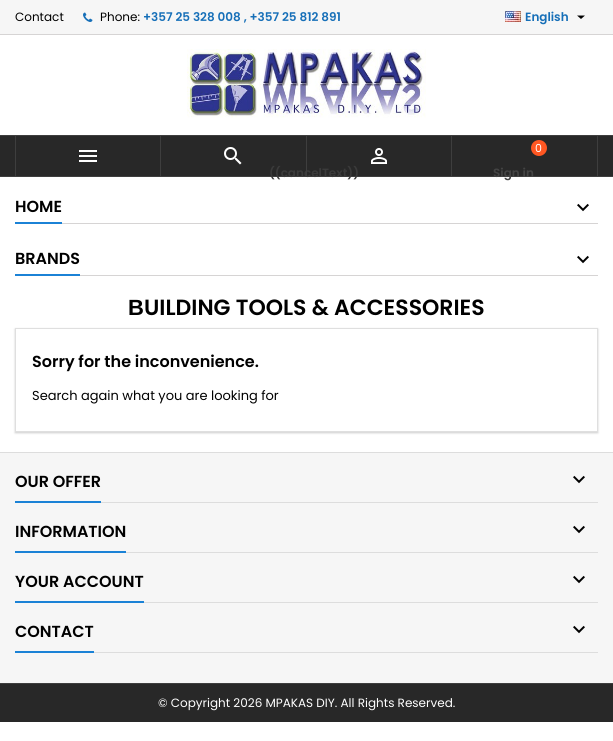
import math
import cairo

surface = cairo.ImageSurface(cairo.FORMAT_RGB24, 613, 741)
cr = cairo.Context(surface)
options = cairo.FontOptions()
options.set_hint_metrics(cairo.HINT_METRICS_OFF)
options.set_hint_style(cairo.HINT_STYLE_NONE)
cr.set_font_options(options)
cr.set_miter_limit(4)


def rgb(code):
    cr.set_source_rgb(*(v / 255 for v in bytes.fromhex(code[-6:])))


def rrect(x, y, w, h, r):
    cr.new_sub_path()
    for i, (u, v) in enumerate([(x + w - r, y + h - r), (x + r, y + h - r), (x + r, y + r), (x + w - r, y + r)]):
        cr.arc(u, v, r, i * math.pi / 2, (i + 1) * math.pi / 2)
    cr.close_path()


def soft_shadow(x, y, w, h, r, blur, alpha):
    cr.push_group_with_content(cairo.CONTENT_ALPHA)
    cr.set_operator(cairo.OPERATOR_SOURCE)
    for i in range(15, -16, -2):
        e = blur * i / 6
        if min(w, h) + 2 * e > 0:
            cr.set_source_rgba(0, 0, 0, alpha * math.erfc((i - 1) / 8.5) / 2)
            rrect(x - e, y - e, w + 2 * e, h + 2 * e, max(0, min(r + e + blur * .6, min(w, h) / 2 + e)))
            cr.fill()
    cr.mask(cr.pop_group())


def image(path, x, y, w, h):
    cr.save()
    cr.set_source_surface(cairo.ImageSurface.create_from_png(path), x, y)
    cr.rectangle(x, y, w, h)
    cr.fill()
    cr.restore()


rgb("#ffffff")
cr.paint()
rgb("#f6f6f6")
cr.rectangle(0, 0, 613, 34)
cr.fill()
rgb("#d6d4d4")
cr.rectangle(0, 34, 613, 1)
cr.fill()
image("img/1.png", 83, 12, 10, 10)
image("img/2.png", 505, 11, 16, 11)
rgb("#000000")
cr.new_path()
cr.move_to(577, 15.5)
cr.line_to(585, 15.5)
cr.line_to(581, 19)
cr.close_path()
cr.fill()
image("img/3.png", 187, 49, 239, 69)
for x, y, w, h, color in [
    (0, 136, 613, 40, "#282828"),
    (0, 135, 613, 1, "#3e3e3e"),
    (0, 176, 613, 1, "#3e3e3e"),
    (160, 136, 1, 40, "#3e3e3e"),
    (15, 136, 1, 40, "#3e3e3e"),
]:
    rgb(color)
    cr.rectangle(x, y, w, h)
    cr.fill()
image("img/4.png", 79, 150, 18, 12)
image("img/5.png", 224, 147, 18, 18)
cr.rectangle(451, 136, 1, 40)
cr.fill()
image("img/6.png", 371, 148, 16, 16)
cr.rectangle(597, 136, 1, 40)
cr.fill()
rgb("#ff5722")
cr.arc(539, 148, 8, 0, 2 * math.pi)
cr.fill()
rgb("#d6d4d4")
cr.rectangle(62, 223, 536, 1)
cr.fill()
rgb("#1b82d6")
cr.rectangle(15, 222, 47, 2)
cr.fill()
image("img/7.png", 577, 203, 12, 9)
rgb("#d6d4d4")
cr.rectangle(80, 275, 518, 1)
cr.fill()
rgb("#1b82d6")
cr.rectangle(15, 274, 65, 2)
cr.fill()
image("img/7.png", 577, 255, 12, 9)
cr.save()
cr.set_fill_rule(cairo.FILL_RULE_EVEN_ODD)
cr.new_path()
cr.move_to(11, 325)
cr.line_to(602, 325)
cr.line_to(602, 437)
cr.line_to(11, 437)
cr.close_path()
cr.move_to(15, 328)
cr.line_to(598, 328)
cr.line_to(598, 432)
cr.line_to(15, 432)
cr.close_path()
cr.clip()
rgb("#000000")
soft_shadow(15, 329, 583, 104, 0, 1, 0.2)
cr.restore()
cr.rectangle(15.5, 328.5, 582, 103)
rgb("#dfdfdf")
cr.set_line_width(1)
cr.stroke()
for x, y, w, h, color in [
    (0, 453, 613, 230, "#f6f6f6"),
    (0, 452, 613, 1, "#dddddd"),
    (101, 502, 497, 1, "#dddddd"),
    (15, 501, 86, 2, "#1b82d6"),
]:
    rgb(color)
    cr.rectangle(x, y, w, h)
    cr.fill()
image("img/8.png", 573, 475, 12, 9)
rgb("#dddddd")
cr.rectangle(126, 552, 472, 1)
cr.fill()
rgb("#1b82d6")
cr.rectangle(15, 551, 111, 2)
cr.fill()
image("img/8.png", 573, 525, 12, 9)
rgb("#dddddd")
cr.rectangle(144, 602, 454, 1)
cr.fill()
rgb("#1b82d6")
cr.rectangle(15, 601, 129, 2)
cr.fill()
image("img/8.png", 573, 575, 12, 9)
rgb("#dddddd")
cr.rectangle(94, 652, 504, 1)
cr.fill()
rgb("#1b82d6")
cr.rectangle(15, 651, 79, 2)
cr.fill()
image("img/8.png", 573, 625, 12, 9)
rgb("#282828")
cr.rectangle(0, 684, 613, 38)
cr.fill()
rgb("#3e3e3e")
cr.rectangle(0, 683, 613, 1)
cr.fill()
cr.select_font_face("Poppins")
cr.set_font_size(12)
rgb("#000000")
cr.move_to(15, 21)
cr.show_text("Contact")
cr.move_to(100, 21)
cr.show_text("Phone:")
cr.select_font_face("Poppins SemiBold")
rgb("#166fb8")
cr.move_to(143, 21)
cr.show_text("+357 25 328 008 , +357 25 812 891")
cr.move_to(525, 21)
cr.show_text("English")
cr.select_font_face("Poppins")
cr.set_font_size(11)
rgb("#ffffff")
cr.move_to(535, 152)
cr.show_text("0")
cr.select_font_face("Poppins SemiBold")
cr.set_font_size(16)
rgb("#000000")
cr.move_to(15, 212)
cr.show_text("HOME")
cr.move_to(15, 264)
cr.show_text("BRANDS")
cr.select_font_face("Liberation Sans", cairo.FONT_SLANT_NORMAL, cairo.FONT_WEIGHT_BOLD)
cr.set_font_size(22)
cr.move_to(128, 315)
cr.show_text("Β")
cr.select_font_face("Poppins SemiBold")
cr.move_to(144, 315)
cr.show_text("UILDING TOOLS & ACCESSORIES")
cr.set_font_size(16)
cr.move_to(32, 367)
cr.show_text("Sorry for the inconvenience.")
cr.select_font_face("Poppins")
cr.set_font_size(13)
cr.move_to(32, 400)
cr.show_text("Search again what you are looking for")
cr.select_font_face("Poppins SemiBold")
cr.set_font_size(16)
for x, y, s in [
    (15, 487, "OUR OFFER"),
    (15, 537, "INFORMATION"),
    (15, 587, "YOUR ACCOUNT"),
    (15, 637, "CONTACT"),
]:
    cr.move_to(x, y)
    cr.show_text(s)
cr.select_font_face("Poppins")
cr.set_font_size(12)
rgb("#ffffff")
cr.move_to(158, 707)
cr.show_text("© Copyright 2026 MPAKAS DIY. All Rights Reserved.")
cr.select_font_face("Poppins SemiBold")
rgb("#3b3b3b")
cr.move_to(269, 177)
cr.show_text("((cancelText))")
rgb("#3e3e3e")
cr.rectangle(306, 136, 1, 40)
cr.fill()
rgb("#444444")
cr.move_to(493, 177)
cr.show_text("Sign in")
surface.write_to_png("page.png")
